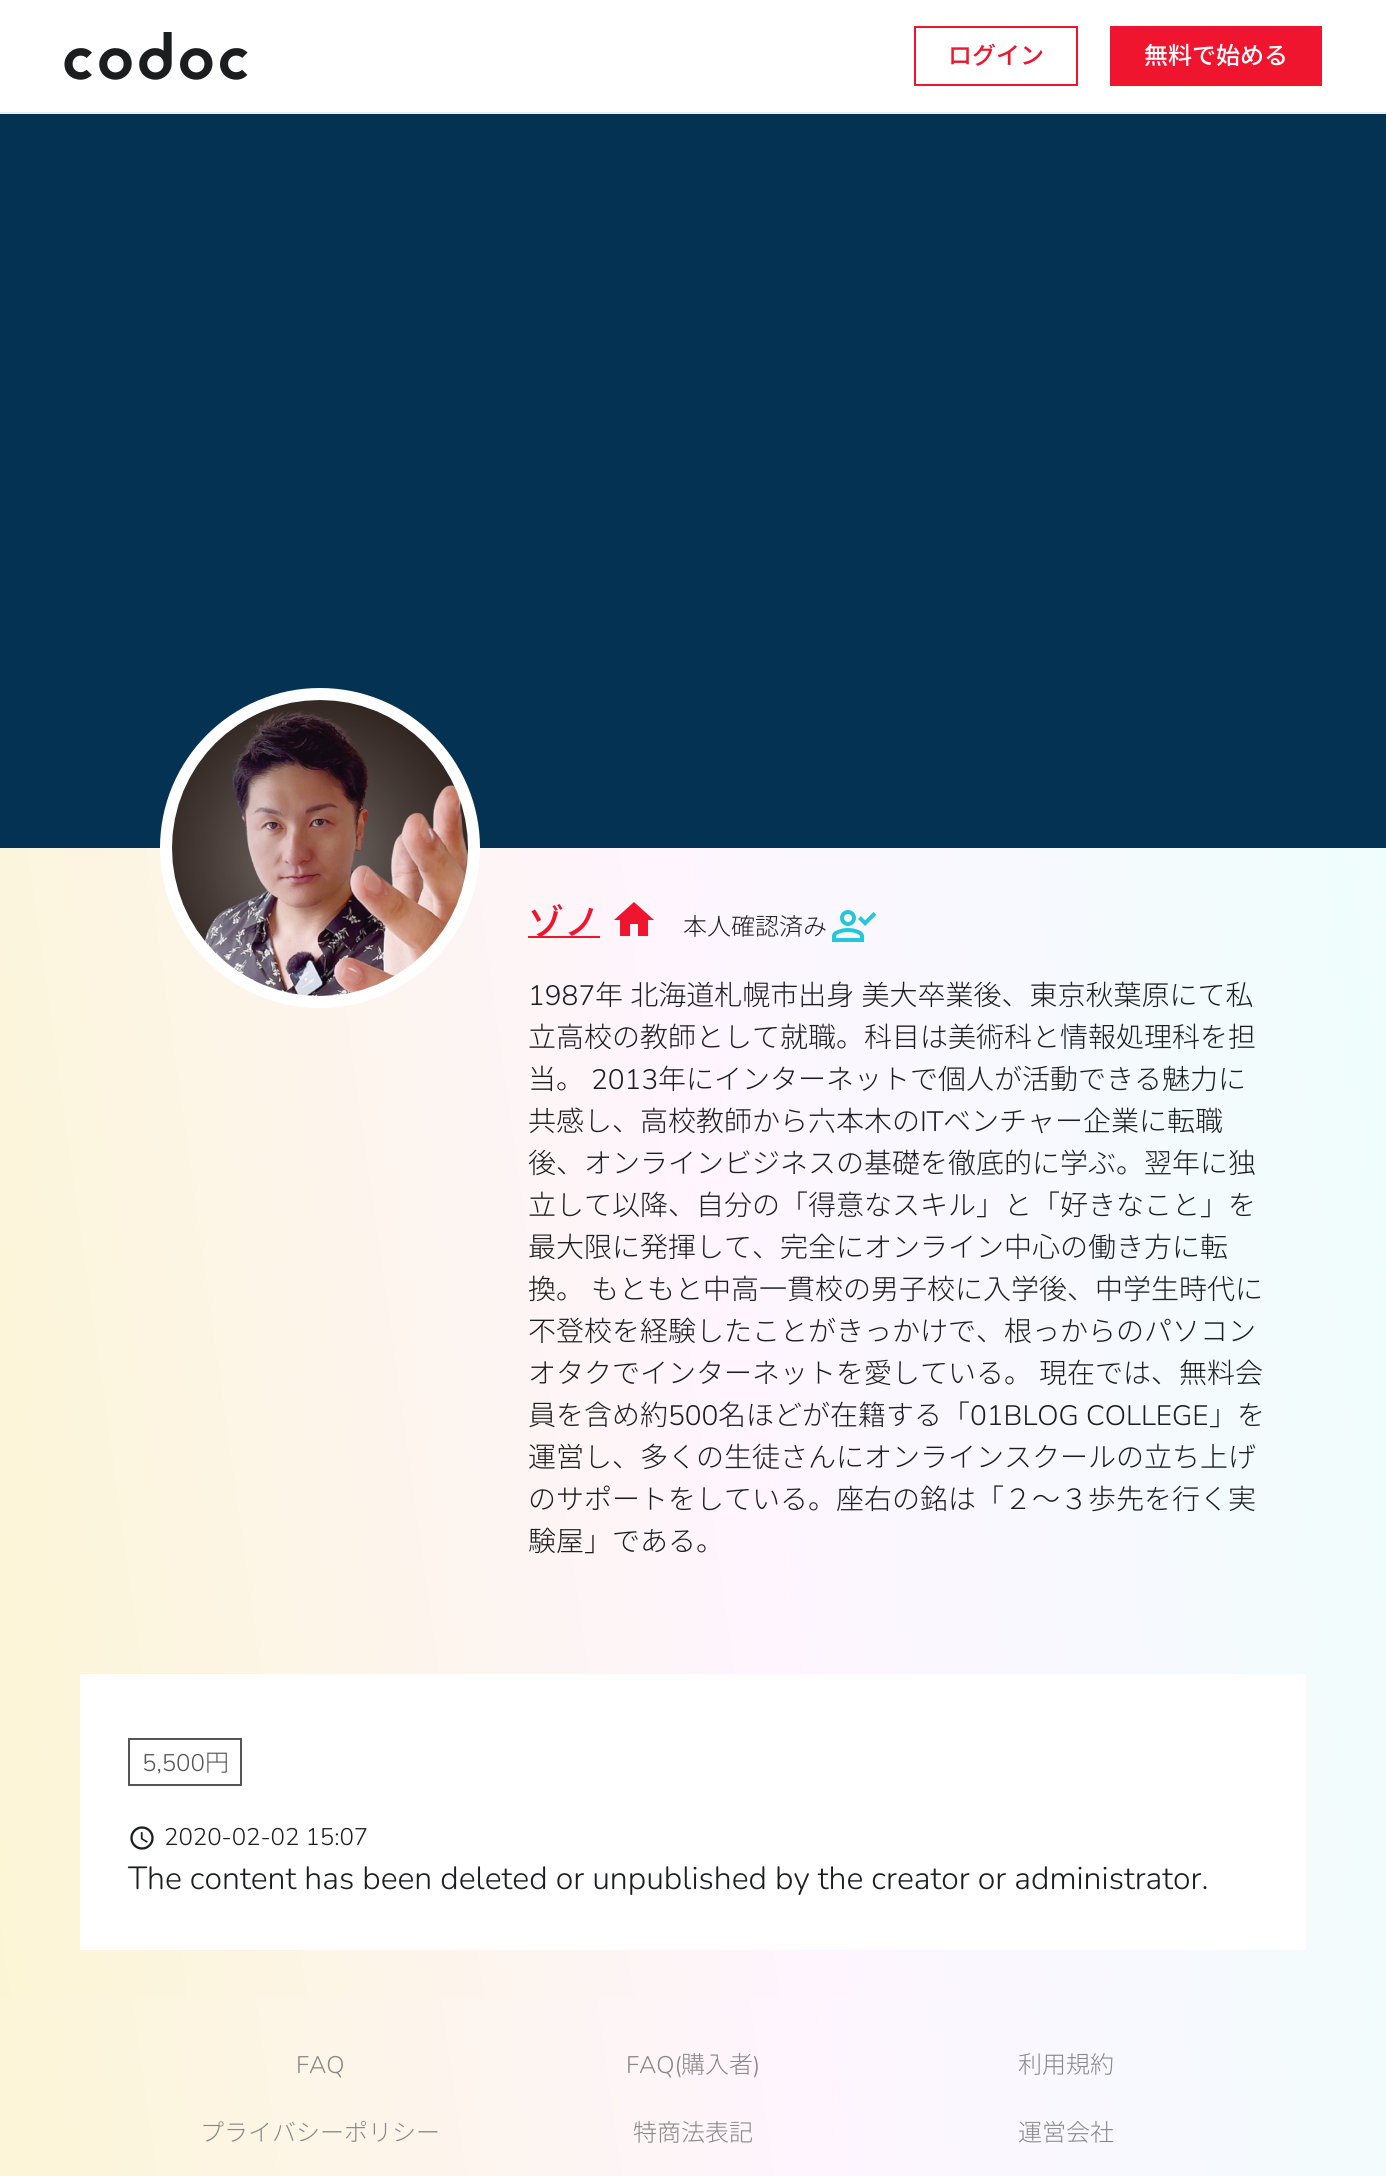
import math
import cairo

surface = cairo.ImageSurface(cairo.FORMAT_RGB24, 1386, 2176)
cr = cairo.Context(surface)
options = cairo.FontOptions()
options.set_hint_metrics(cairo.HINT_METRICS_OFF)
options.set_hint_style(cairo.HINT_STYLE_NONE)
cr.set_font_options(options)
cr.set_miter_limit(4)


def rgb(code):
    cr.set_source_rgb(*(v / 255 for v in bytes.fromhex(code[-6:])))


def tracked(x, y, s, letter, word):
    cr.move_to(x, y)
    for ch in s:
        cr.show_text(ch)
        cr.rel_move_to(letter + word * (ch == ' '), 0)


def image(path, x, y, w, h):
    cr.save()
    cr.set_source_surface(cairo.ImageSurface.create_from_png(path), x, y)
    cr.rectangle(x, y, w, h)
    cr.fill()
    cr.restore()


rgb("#ffffff")
cr.paint()
rgb("#ebedf0")
cr.rectangle(0, 112, 1386, 2)
cr.fill()
image("img/1.png", 64, 32, 184, 48)
cr.rectangle(915, 27, 162, 58)
rgb("#ef152e")
cr.stroke()
cr.rectangle(1110, 26, 212, 60)
cr.fill()
gradient = cairo.LinearGradient(-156, 1347, 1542, 1109)
gradient.add_color_stop_rgba(0, 0.988, 0.961, 0.835, 1)
gradient.add_color_stop_rgba(0.5, 0.996, 0.961, 1, 1)
gradient.add_color_stop_rgba(1, 0.929, 1, 0.988, 1)
cr.set_source(gradient)
cr.rectangle(0, 1998, 1386, 178)
cr.fill()
gradient = cairo.LinearGradient(-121, 1137, 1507, 909)
gradient.add_color_stop_rgba(0, 0.988, 0.961, 0.835, 1)
gradient.add_color_stop_rgba(0.5, 0.996, 0.961, 1, 1)
gradient.add_color_stop_rgba(1, 0.929, 1, 0.988, 1)
cr.set_source(gradient)
cr.rectangle(0, 848, 1386, 1150)
cr.fill()
rgb("#043252")
cr.rectangle(0, 114, 1386, 734)
cr.fill()
rgb("#ffffff")
cr.arc(320, 848, 154, 0, 2 * math.pi)
cr.fill_preserve()
cr.set_line_width(12)
cr.stroke()
image("img/2.png", 172, 700, 296, 296)
rgb("#ef152e")
cr.rectangle(528, 936, 72, 2)
cr.fill()
cr.new_path()
cr.move_to(630, 936)
cr.line_to(620, 936)
cr.line_to(620, 920)
cr.line_to(614, 920)
cr.line_to(634, 902)
cr.line_to(654, 920)
cr.line_to(648, 920)
cr.line_to(648, 936)
cr.line_to(638, 936)
cr.line_to(638, 924)
cr.line_to(630, 924)
cr.close_path()
cr.fill()
image("img/3.png", 832, 910, 45, 32)
rgb("#ffffff")
cr.rectangle(80, 1674, 1226, 276)
cr.fill()
cr.rectangle(129, 1739, 112, 46)
rgb("#555555")
cr.set_line_width(2)
cr.stroke()
image("img/4.png", 130, 1826, 24, 24)
cr.select_font_face("Noto Sans JP Medium")
cr.set_font_size(24)
rgb("#ef152e")
cr.move_to(948, 64)
cr.show_text("ログイン")
rgb("#ffffff")
cr.move_to(1144, 64)
cr.show_text("無料で始める")
cr.set_font_size(36)
rgb("#ef152e")
cr.move_to(528, 935)
cr.show_text("ゾノ")
cr.select_font_face("Noto Sans JP Light")
cr.set_font_size(24)
rgb("#1b1d1f")
cr.move_to(683, 935)
cr.show_text("本人確認済み")
cr.select_font_face("Nunito Light")
cr.set_font_size(28)
cr.move_to(528, 1005)
cr.show_text("1987")
cr.select_font_face("Noto Sans JP Light")
tracked(595, 1005, "年 北海道札幌市出身 美大卒業後、東京秋葉原にて私", 0, 1)
cr.move_to(528, 1047)
cr.show_text("立高校の教師として就職。科目は美術科と情報処理科を担")
cr.move_to(528, 1089)
cr.show_text("当。")
cr.select_font_face("Nunito Light")
cr.move_to(591, 1089)
cr.show_text("2013")
cr.select_font_face("Noto Sans JP Light")
cr.move_to(658, 1089)
cr.show_text("年にインターネットで個人が活動できる魅力に")
cr.move_to(528, 1131)
cr.show_text("共感し、高校教師から六本木の")
cr.select_font_face("Nunito Light")
cr.move_to(920, 1131)
cr.show_text("IT")
cr.select_font_face("Noto Sans JP Light")
for x, y, s in [
    (943, 1131, "ベンチャー企業に転職"),
    (528, 1173, "後、オンラインビジネスの基礎を徹底的に学ぶ。翌年に独"),
    (528, 1215, "立して以降、自分の「得意なスキル」と「好きなこと」を"),
    (528, 1257, "最大限に発揮して、完全にオンライン中心の働き方に転"),
    (528, 1299, "換。"),
    (591, 1299, "もともと中高一貫校の男子校に入学後、中学生時代に"),
    (528, 1341, "不登校を経験したことがきっかけで、根っからのパソコン"),
    (528, 1383, "オタクでインターネットを愛している。"),
    (1039, 1383, "現在では、無料会"),
    (528, 1425, "員を含め約"),
]:
    cr.move_to(x, y)
    cr.show_text(s)
cr.select_font_face("Nunito Light")
cr.move_to(668, 1425)
cr.show_text("500")
cr.select_font_face("Noto Sans JP Light")
cr.move_to(718, 1425)
cr.show_text("名ほどが在籍する「")
cr.select_font_face("Nunito Light")
cr.move_to(970, 1425)
cr.show_text("01BLOG COLLEGE")
cr.select_font_face("Noto Sans JP Light")
for x, y, s in [
    (1209, 1425, "」を"),
    (528, 1467, "運営し、多くの生徒さんにオンラインスクールの立ち上げ"),
    (528, 1509, "のサポートをしている。座右の銘は「２〜３歩先を行く実"),
    (528, 1551, "験屋」である。"),
]:
    cr.move_to(x, y)
    cr.show_text(s)
cr.select_font_face("Nunito Light")
cr.set_font_size(24)
rgb("#555555")
cr.move_to(142, 1771)
cr.show_text("5,500")
cr.select_font_face("Noto Sans JP Light")
cr.move_to(205, 1771)
cr.show_text("円")
cr.select_font_face("Nunito Light")
rgb("#1b1d1f")
cr.move_to(164, 1845)
cr.show_text("2020-02-02 15:07")
cr.set_font_size(32)
cr.move_to(128, 1889)
cr.show_text("The content has been deleted or unpublished by the creator or administrator.")
cr.set_font_size(24)
rgb("#888888")
cr.move_to(296, 2073)
cr.show_text("FAQ")
cr.move_to(626, 2073)
cr.show_text("FAQ(")
cr.select_font_face("Noto Sans JP Light")
cr.move_to(681, 2073)
cr.show_text("購入者")
cr.select_font_face("Nunito Light")
cr.move_to(753, 2073)
cr.show_text(")")
cr.select_font_face("Noto Sans JP Light")
for x, y, s in [
    (1018, 2073, "利用規約"),
    (200, 2141, "プライバシーポリシー"),
    (633, 2141, "特商法表記"),
    (1018, 2141, "運営会社"),
]:
    cr.move_to(x, y)
    cr.show_text(s)
surface.write_to_png("page.png")
